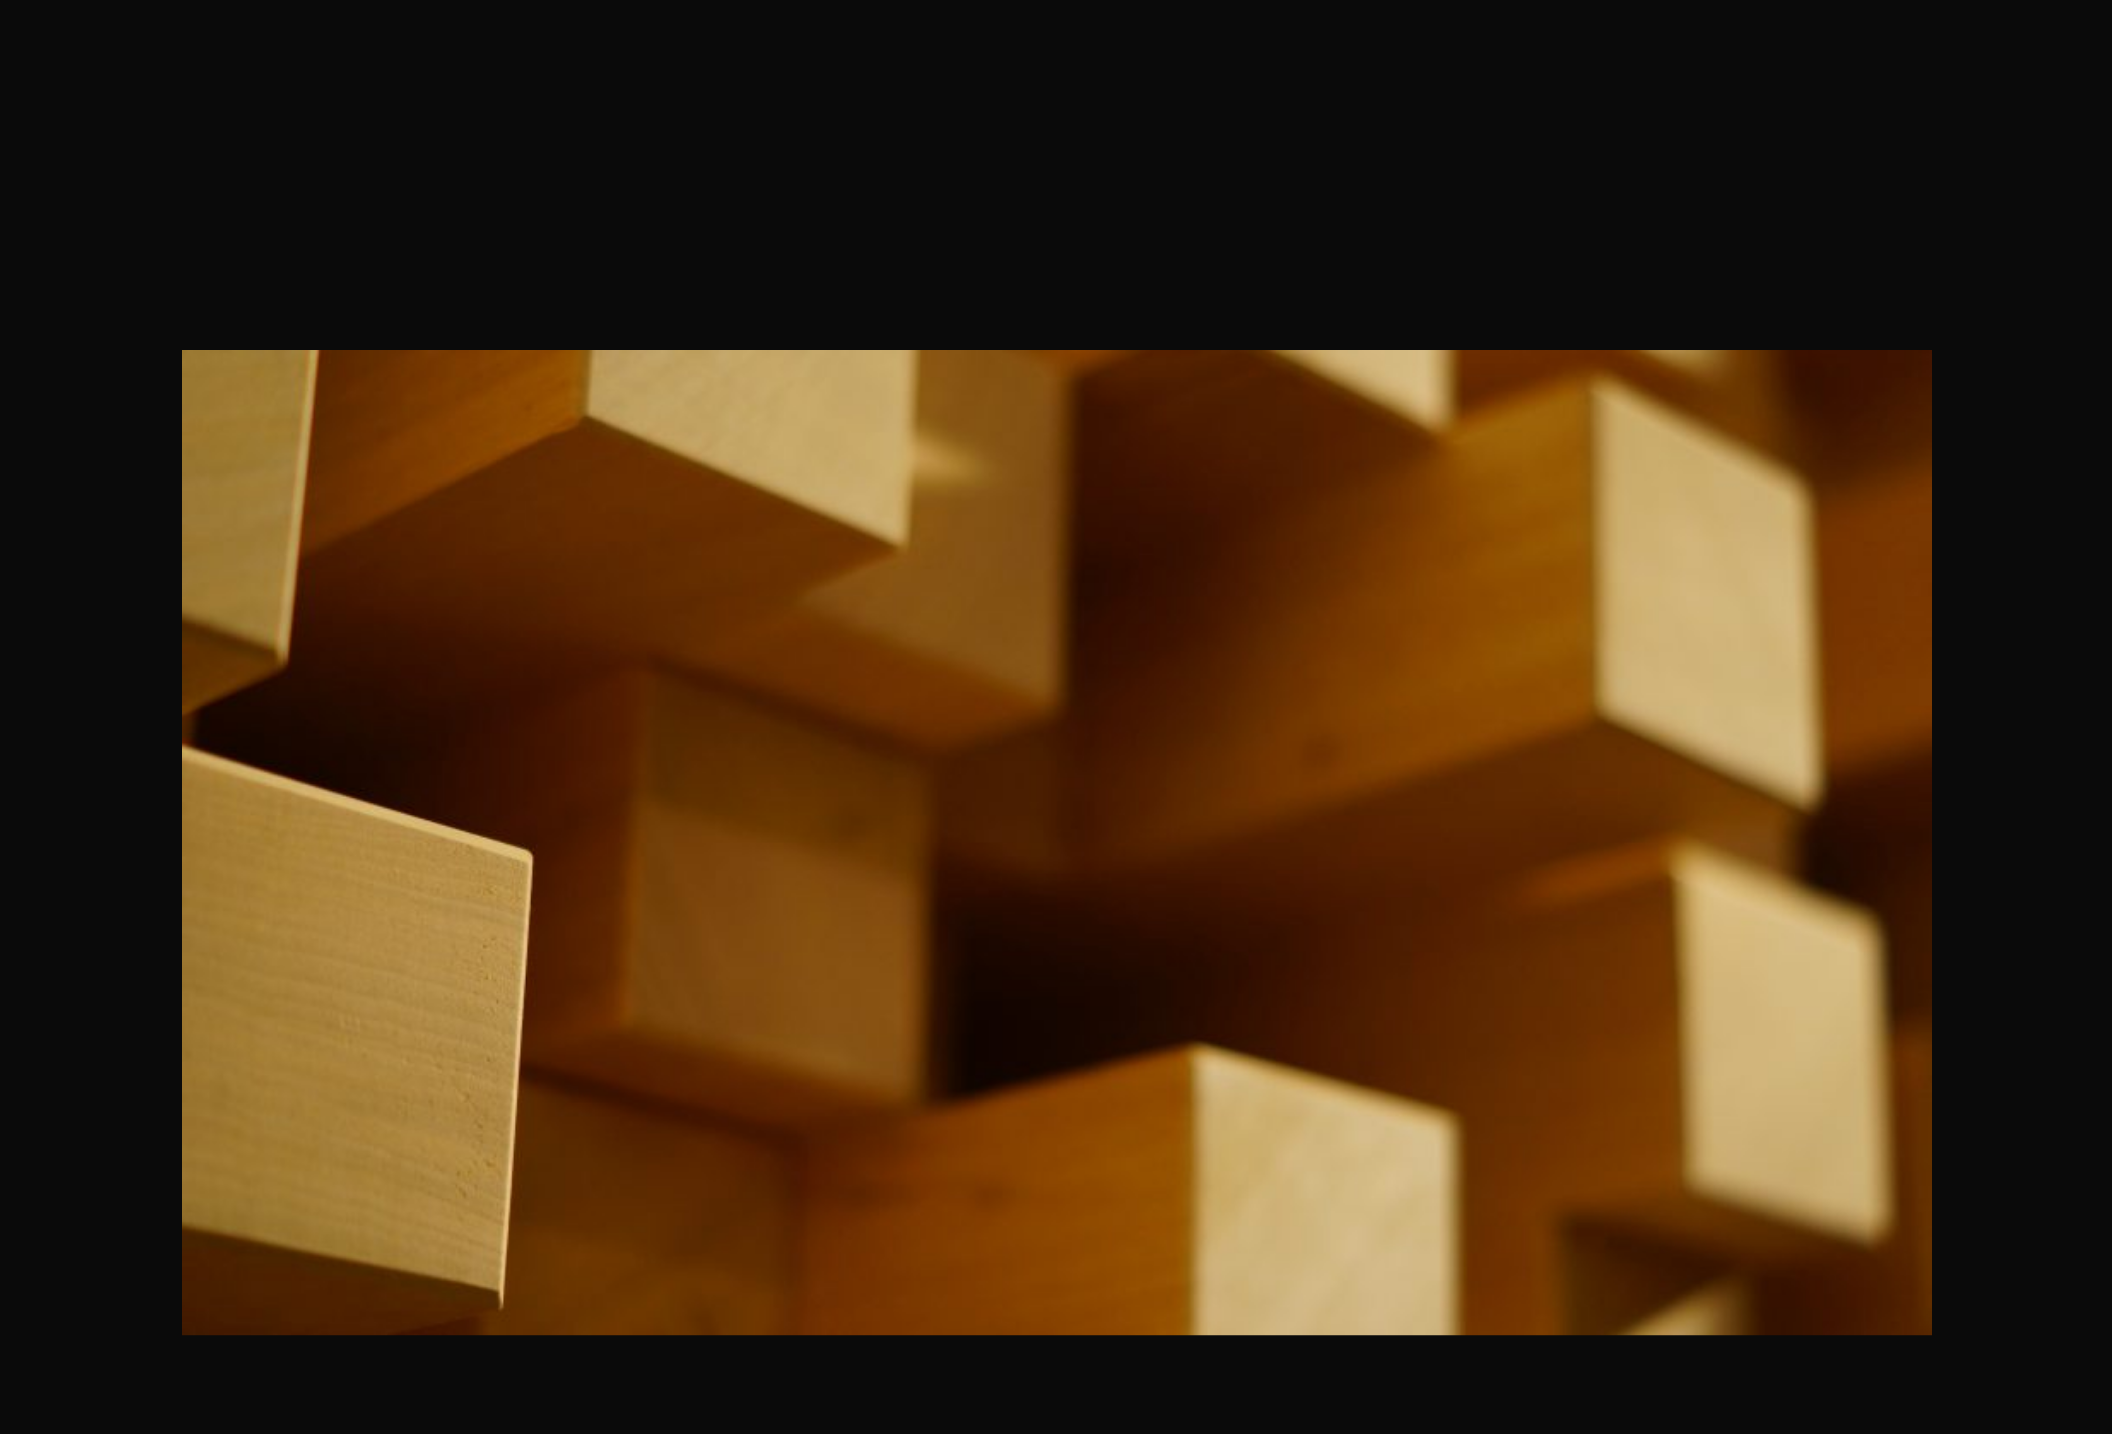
import math
import cairo

surface = cairo.ImageSurface(cairo.FORMAT_RGB24, 2112, 1434)
cr = cairo.Context(surface)
options = cairo.FontOptions()
options.set_hint_metrics(cairo.HINT_METRICS_OFF)
options.set_hint_style(cairo.HINT_STYLE_NONE)
cr.set_font_options(options)
cr.set_miter_limit(4)


def rgb(code):
    cr.set_source_rgb(*(v / 255 for v in bytes.fromhex(code[-6:])))


def image(path, x, y, w, h):
    cr.save()
    cr.set_source_surface(cairo.ImageSurface.create_from_png(path), x, y)
    cr.rectangle(x, y, w, h)
    cr.fill()
    cr.restore()


rgb("#0a0a0a")
cr.paint()
image("img/1.png", 182, 350, 1750, 986)
surface.write_to_png("page.png")
